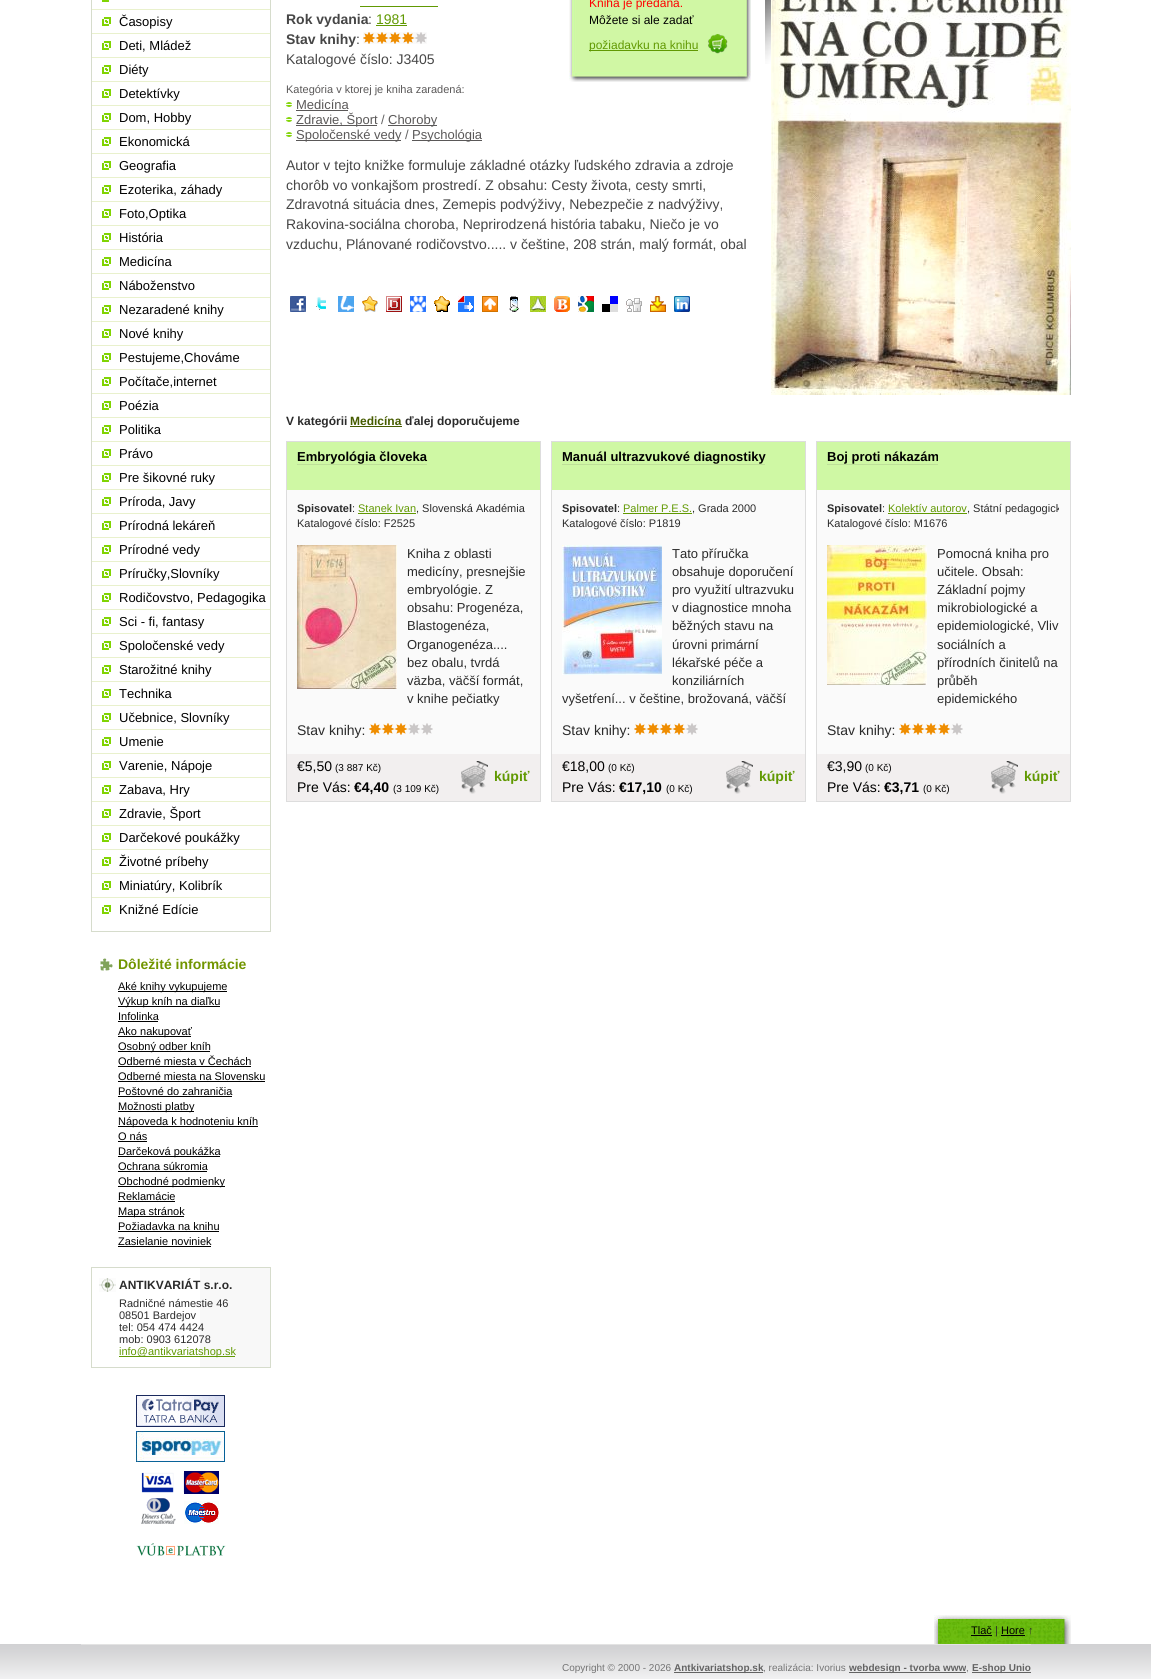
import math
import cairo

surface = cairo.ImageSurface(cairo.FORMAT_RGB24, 1151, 1679)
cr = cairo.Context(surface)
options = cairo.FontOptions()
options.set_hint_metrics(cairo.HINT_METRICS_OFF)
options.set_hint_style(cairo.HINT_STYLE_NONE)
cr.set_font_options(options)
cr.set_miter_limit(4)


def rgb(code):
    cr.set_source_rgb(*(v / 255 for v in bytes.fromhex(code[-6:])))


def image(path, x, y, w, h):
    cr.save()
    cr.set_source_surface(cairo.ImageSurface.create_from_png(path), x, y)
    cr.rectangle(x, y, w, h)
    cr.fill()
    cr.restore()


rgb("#ffffff")
cr.paint()
image("img/1.png", 0, 1644, 1151, 35)
cr.rectangle(91.5, -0.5, 179, 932)
rgb("#d6dccc")
cr.set_line_width(1)
cr.stroke()
image("img/2.png", 102, 0, 8, 2)
image("img/3.png", 102, 17, 9, 9)
rgb("#e9f1cd")
cr.rectangle(92, 9, 178, 1)
cr.fill()
image("img/3.png", 102, 41, 9, 9)
cr.rectangle(92, 33, 178, 1)
cr.fill()
image("img/3.png", 102, 65, 9, 9)
cr.rectangle(92, 57, 178, 1)
cr.fill()
image("img/3.png", 102, 89, 9, 9)
cr.rectangle(92, 81, 178, 1)
cr.fill()
image("img/3.png", 102, 113, 9, 9)
cr.rectangle(92, 105, 178, 1)
cr.fill()
image("img/3.png", 102, 137, 9, 9)
cr.rectangle(92, 129, 178, 1)
cr.fill()
image("img/3.png", 102, 161, 9, 9)
cr.rectangle(92, 153, 178, 1)
cr.fill()
image("img/3.png", 102, 185, 9, 9)
cr.rectangle(92, 177, 178, 1)
cr.fill()
image("img/3.png", 102, 209, 9, 9)
cr.rectangle(92, 201, 178, 1)
cr.fill()
image("img/3.png", 102, 233, 9, 9)
cr.rectangle(92, 225, 178, 1)
cr.fill()
image("img/3.png", 102, 257, 9, 9)
cr.rectangle(92, 249, 178, 1)
cr.fill()
image("img/3.png", 102, 281, 9, 9)
cr.rectangle(92, 273, 178, 1)
cr.fill()
image("img/3.png", 102, 305, 9, 9)
cr.rectangle(92, 297, 178, 1)
cr.fill()
image("img/3.png", 102, 329, 9, 9)
cr.rectangle(92, 321, 178, 1)
cr.fill()
image("img/3.png", 102, 353, 9, 9)
cr.rectangle(92, 345, 178, 1)
cr.fill()
image("img/3.png", 102, 377, 9, 9)
cr.rectangle(92, 369, 178, 1)
cr.fill()
image("img/3.png", 102, 401, 9, 9)
cr.rectangle(92, 393, 178, 1)
cr.fill()
image("img/3.png", 102, 425, 9, 9)
cr.rectangle(92, 417, 178, 1)
cr.fill()
image("img/3.png", 102, 449, 9, 9)
cr.rectangle(92, 441, 178, 1)
cr.fill()
image("img/3.png", 102, 473, 9, 9)
cr.rectangle(92, 465, 178, 1)
cr.fill()
image("img/3.png", 102, 497, 9, 9)
cr.rectangle(92, 489, 178, 1)
cr.fill()
image("img/3.png", 102, 521, 9, 9)
cr.rectangle(92, 513, 178, 1)
cr.fill()
image("img/3.png", 102, 545, 9, 9)
cr.rectangle(92, 537, 178, 1)
cr.fill()
image("img/3.png", 102, 569, 9, 9)
cr.rectangle(92, 561, 178, 1)
cr.fill()
image("img/3.png", 102, 593, 9, 9)
cr.rectangle(92, 585, 178, 1)
cr.fill()
image("img/3.png", 102, 617, 9, 9)
cr.rectangle(92, 609, 178, 1)
cr.fill()
image("img/3.png", 102, 641, 9, 9)
cr.rectangle(92, 633, 178, 1)
cr.fill()
image("img/3.png", 102, 665, 9, 9)
cr.rectangle(92, 657, 178, 1)
cr.fill()
image("img/3.png", 102, 689, 9, 9)
cr.rectangle(92, 681, 178, 1)
cr.fill()
image("img/3.png", 102, 713, 9, 9)
cr.rectangle(92, 705, 178, 1)
cr.fill()
image("img/3.png", 102, 737, 9, 9)
cr.rectangle(92, 729, 178, 1)
cr.fill()
image("img/3.png", 102, 761, 9, 9)
cr.rectangle(92, 753, 178, 1)
cr.fill()
image("img/3.png", 102, 785, 9, 9)
cr.rectangle(92, 777, 178, 1)
cr.fill()
image("img/3.png", 102, 809, 9, 9)
cr.rectangle(92, 801, 178, 1)
cr.fill()
image("img/3.png", 102, 833, 9, 9)
cr.rectangle(92, 825, 178, 1)
cr.fill()
image("img/3.png", 102, 857, 9, 9)
cr.rectangle(92, 849, 178, 1)
cr.fill()
image("img/3.png", 102, 881, 9, 9)
cr.rectangle(92, 873, 178, 1)
cr.fill()
image("img/3.png", 102, 905, 9, 9)
cr.rectangle(92, 897, 178, 1)
cr.fill()
image("img/4.png", 100, 958, 13, 13)
for x, y, w, h, color in [
    (118, 991, 109, 1, "#000000"),
    (118, 1006, 102, 1, "#000000"),
    (118, 1021, 40, 1, "#000000"),
    (118, 1036, 73, 1, "#000000"),
    (118, 1051, 92, 1, "#000000"),
    (118, 1066, 133, 1, "#000000"),
    (118, 1081, 147, 1, "#000000"),
    (118, 1096, 114, 1, "#000000"),
    (118, 1111, 76, 1, "#000000"),
    (118, 1126, 140, 1, "#000000"),
    (118, 1141, 29, 1, "#000000"),
    (118, 1156, 102, 1, "#000000"),
    (118, 1171, 89, 1, "#000000"),
    (118, 1186, 107, 1, "#000000"),
    (118, 1201, 57, 1, "#000000"),
    (118, 1216, 66, 1, "#000000"),
    (118, 1231, 101, 1, "#000000"),
    (118, 1246, 93, 1, "#000000"),
    (200, 1268, 70, 99, "#f8f8f8"),
]:
    rgb(color)
    cr.rectangle(x, y, w, h)
    cr.fill()
cr.rectangle(91.5, 1267.5, 179, 100)
rgb("#d6dccc")
cr.stroke()
image("img/5.png", 99, 1278, 17, 14)
rgb("#619902")
cr.rectangle(119, 1356, 116, 1)
cr.fill()
image("img/6.png", 136, 1395, 89, 32)
image("img/7.png", 136, 1431, 89, 31)
image("img/8.png", 141, 1471, 78, 53)
image("img/9.png", 136, 1543, 90, 13)
cr.rectangle(360, 6, 78, 1)
cr.fill()
cr.rectangle(376, 25, 31, 1)
cr.fill()
image("img/10.png", 363, 32, 64, 12)
image("img/11.png", 569, 0, 182, 82)
cr.rectangle(589, 50, 109, 1)
cr.fill()
image("img/12.png", 708, 34, 20, 20)
image("img/13.png", 286, 102, 6, 5)
rgb("#5a5858")
cr.rectangle(296, 110, 52, 1)
cr.fill()
image("img/13.png", 286, 117, 6, 5)
cr.rectangle(296, 125, 81, 1)
cr.fill()
cr.rectangle(388, 125, 49, 1)
cr.fill()
image("img/13.png", 286, 132, 6, 5)
cr.rectangle(296, 140, 105, 1)
cr.fill()
cr.rectangle(412, 140, 70, 1)
cr.fill()
image("img/14.png", 765, 0, 306, 395)
image("img/15.png", 290, 296, 16, 16)
image("img/16.png", 316, 297, 10, 13)
image("img/17.png", 338, 296, 16, 16)
image("img/18.png", 362, 296, 16, 16)
image("img/19.png", 386, 296, 16, 16)
image("img/20.png", 410, 296, 16, 16)
image("img/21.png", 434, 296, 16, 16)
image("img/22.png", 458, 296, 16, 16)
image("img/23.png", 482, 296, 16, 16)
image("img/24.png", 509, 296, 10, 16)
image("img/25.png", 530, 296, 16, 16)
image("img/26.png", 554, 296, 16, 16)
image("img/27.png", 578, 296, 16, 16)
image("img/28.png", 602, 296, 16, 16)
image("img/29.png", 626, 298, 16, 14)
image("img/30.png", 650, 296, 16, 16)
image("img/31.png", 674, 296, 16, 16)
rgb("#465c00")
cr.rectangle(350, 426, 52, 1)
cr.fill()
rgb("#fafafa")
cr.rectangle(287, 490, 253, 264)
cr.fill()
cr.rectangle(286.5, 441.5, 254, 360)
rgb("#dddddd")
cr.stroke()
for x, y, w, h, color in [
    (287, 442, 253, 48, "#cff8a4"),
    (297, 464, 130, 1, "#bedf99"),
    (358, 513, 58, 1, "#619902"),
]:
    rgb(color)
    cr.rectangle(x, y, w, h)
    cr.fill()
image("img/32.png", 297, 545, 100, 144)
image("img/33.png", 369, 723, 64, 12)
rgb("#f2efef")
cr.rectangle(287, 754, 253, 47)
cr.fill()
image("img/34.png", 461, 761, 27, 33)
rgb("#fafafa")
cr.rectangle(552, 490, 253, 264)
cr.fill()
cr.rectangle(551.5, 441.5, 254, 360)
rgb("#dddddd")
cr.stroke()
for x, y, w, h, color in [
    (552, 442, 253, 48, "#cff8a4"),
    (562, 464, 203, 1, "#bedf99"),
    (623, 513, 69, 1, "#619902"),
]:
    rgb(color)
    cr.rectangle(x, y, w, h)
    cr.fill()
image("img/35.png", 562, 545, 100, 130)
image("img/10.png", 634, 723, 64, 12)
rgb("#f2efef")
cr.rectangle(552, 754, 253, 47)
cr.fill()
image("img/34.png", 726, 761, 27, 33)
rgb("#fafafa")
cr.rectangle(817, 490, 253, 264)
cr.fill()
cr.rectangle(816.5, 441.5, 254, 360)
rgb("#dddddd")
cr.stroke()
for x, y, w, h, color in [
    (817, 442, 253, 48, "#cff8a4"),
    (827, 464, 111, 1, "#bedf99"),
    (888, 513, 79, 1, "#619902"),
]:
    rgb(color)
    cr.rectangle(x, y, w, h)
    cr.fill()
image("img/36.png", 827, 545, 100, 140)
image("img/10.png", 899, 723, 64, 12)
rgb("#f2efef")
cr.rectangle(817, 754, 253, 47)
cr.fill()
image("img/34.png", 991, 761, 27, 33)
image("img/37.png", 934, 1615, 137, 29)
for x, y, w, h, color in [
    (971, 1635, 21, 1, "#000000"),
    (1001, 1635, 24, 1, "#000000"),
    (81, 1644, 950, 1, "#e3e3e3"),
    (674, 1672, 89, 1, "#636363"),
    (849, 1672, 117, 1, "#636363"),
    (972, 1672, 59, 1, "#636363"),
]:
    rgb(color)
    cr.rectangle(x, y, w, h)
    cr.fill()
cr.select_font_face("Liberation Sans")
cr.set_font_size(13)
rgb("#000000")
for x, y, s in [
    (119, 26, "Časopisy"),
    (119, 50, "Deti, Mládež"),
    (119, 74, "Diéty"),
    (119, 98, "Detektívky"),
    (119, 122, "Dom, Hobby"),
    (119, 146, "Ekonomická"),
    (119, 170, "Geografia"),
    (119, 194, "Ezoterika, záhady"),
    (119, 218, "Foto,Optika"),
    (119, 242, "História"),
    (119, 266, "Medicína"),
    (119, 290, "Náboženstvo"),
    (119, 314, "Nezaradené knihy"),
    (119, 338, "Nové knihy"),
    (119, 362, "Pestujeme,Chováme"),
    (119, 386, "Počítače,internet"),
    (119, 410, "Poézia"),
    (119, 434, "Politika"),
    (119, 458, "Právo"),
    (119, 482, "Pre šikovné ruky"),
    (119, 506, "Príroda, Javy"),
    (119, 530, "Prírodná lekáreň"),
    (119, 554, "Prírodné vedy"),
    (119, 578, "Príručky,Slovníky"),
    (119, 602, "Rodičovstvo, Pedagogika"),
    (119, 626, "Sci - fi, fantasy"),
    (119, 650, "Spoločenské vedy"),
    (119, 674, "Starožitné knihy"),
    (119, 698, "Technika"),
    (119, 722, "Učebnice, Slovníky"),
    (119, 746, "Umenie"),
    (119, 770, "Varenie, Nápoje"),
    (119, 794, "Zabava, Hry"),
    (119, 818, "Zdravie, Šport"),
    (119, 842, "Darčekové poukážky"),
    (119, 866, "Životné príbehy"),
    (119, 890, "Miniatúry, Kolibrík"),
    (119, 914, "Knižné Edície"),
]:
    cr.move_to(x, y)
    cr.show_text(s)
cr.select_font_face("Liberation Sans", cairo.FONT_SLANT_NORMAL, cairo.FONT_WEIGHT_BOLD)
cr.set_font_size(14)
rgb("#719500")
cr.move_to(118, 969)
cr.show_text("Dôležité informácie")
cr.select_font_face("Liberation Sans")
cr.set_font_size(11)
rgb("#000000")
for x, y, s in [
    (118, 990, "Aké knihy vykupujeme"),
    (118, 1005, "Výkup kníh na diaľku"),
    (118, 1020, "Infolinka"),
    (118, 1035, "Ako nakupovať"),
    (118, 1050, "Osobný odber kníh"),
    (118, 1065, "Odberné miesta v Čechách"),
    (118, 1080, "Odberné miesta na Slovensku"),
    (118, 1095, "Poštovné do zahraničia"),
    (118, 1110, "Možnosti platby"),
    (118, 1125, "Nápoveda k hodnoteniu kníh"),
    (118, 1140, "O nás"),
    (118, 1155, "Darčeková poukážka"),
    (118, 1170, "Ochrana súkromia"),
    (118, 1185, "Obchodné podmienky"),
    (118, 1200, "Reklamácie"),
    (118, 1215, "Mapa stránok"),
    (118, 1230, "Požiadavka na knihu"),
    (118, 1245, "Zasielanie noviniek"),
]:
    cr.move_to(x, y)
    cr.show_text(s)
cr.select_font_face("Liberation Sans", cairo.FONT_SLANT_NORMAL, cairo.FONT_WEIGHT_BOLD)
cr.set_font_size(12)
rgb("#2b2b2b")
cr.move_to(119, 1289)
cr.show_text("ANTIKVARIÁT s.r.o.")
cr.select_font_face("Liberation Sans")
cr.set_font_size(11)
for x, y, s in [
    (119, 1307, "Radničné námestie 46"),
    (119, 1319, "08501 Bardejov"),
    (119, 1331, "tel: 054 474 4424"),
    (119, 1343, "mob: 0903 612078"),
]:
    cr.move_to(x, y)
    cr.show_text(s)
rgb("#619902")
cr.move_to(119, 1355)
cr.show_text("info@antikvariatshop.sk")
cr.select_font_face("Liberation Sans", cairo.FONT_SLANT_NORMAL, cairo.FONT_WEIGHT_BOLD)
cr.set_font_size(14)
rgb("#464646")
cr.move_to(286, 24)
cr.show_text("Rok vydania")
cr.select_font_face("Liberation Sans")
cr.move_to(368, 24)
cr.show_text(":")
rgb("#619902")
cr.move_to(376, 24)
cr.show_text("1981")
cr.select_font_face("Liberation Sans", cairo.FONT_SLANT_NORMAL, cairo.FONT_WEIGHT_BOLD)
rgb("#464646")
cr.move_to(286, 44)
cr.show_text("Stav knihy")
cr.select_font_face("Liberation Sans")
cr.move_to(356, 44)
cr.show_text(":")
cr.move_to(286, 64)
cr.show_text("Katalogové číslo: J3405")
cr.set_font_size(12)
rgb("#ff0000")
cr.move_to(589, 7)
cr.show_text("Kniha je predaná.")
rgb("#000000")
cr.move_to(589, 24)
cr.show_text("Môžete si ale zadať")
rgb("#619902")
cr.move_to(589, 49)
cr.show_text("požiadavku na knihu")
cr.set_font_size(11)
rgb("#5a5858")
cr.move_to(286, 93)
cr.show_text("Kategória v ktorej je kniha zaradená:")
cr.set_font_size(13)
cr.move_to(296, 109)
cr.show_text("Medicína")
cr.move_to(296, 124)
cr.show_text("Zdravie, Šport")
rgb("#636363")
cr.move_to(381, 124)
cr.show_text("/")
rgb("#5a5858")
cr.move_to(388, 124)
cr.show_text("Choroby")
cr.move_to(296, 139)
cr.show_text("Spoločenské vedy")
rgb("#636363")
cr.move_to(405, 139)
cr.show_text("/")
rgb("#5a5858")
cr.move_to(412, 139)
cr.show_text("Psychológia")
cr.set_font_size(14)
rgb("#464646")
for x, y, s in [
    (286, 170, "Autor v tejto knižke formuluje základné otázky ľudského zdravia a zdroje"),
    (286, 190, "chorôb vo vonkajšom prostredí. Z obsahu: Cesty života, cesty smrti,"),
    (286, 209, "Zdravotná situácia dnes, Zemepis podvýživy, Nebezpečie z nadvýživy,"),
    (286, 229, "Rakovina-sociálna choroba, Neprirodzená história tabaku, Niečo je vo"),
    (286, 249, "vzduchu, Plánované rodičovstvo..... v češtine, 208 strán, malý formát, obal"),
]:
    cr.move_to(x, y)
    cr.show_text(s)
cr.select_font_face("Liberation Sans", cairo.FONT_SLANT_NORMAL, cairo.FONT_WEIGHT_BOLD)
cr.set_font_size(12)
rgb("#2b2b2b")
cr.move_to(286, 425)
cr.show_text("V kategórii")
rgb("#465c00")
cr.move_to(350, 425)
cr.show_text("Medicína")
rgb("#2b2b2b")
cr.move_to(405, 425)
cr.show_text("ďalej doporučujeme")
cr.set_font_size(13)
rgb("#000000")
cr.move_to(297, 461)
cr.show_text("Embryológia človeka")
cr.set_font_size(11)
rgb("#2b2b2b")
cr.move_to(297, 512)
cr.show_text("Spisovatel")
cr.select_font_face("Liberation Sans")
cr.move_to(352, 512)
cr.show_text(":")
rgb("#619902")
cr.move_to(358, 512)
cr.show_text("Stanek Ivan")
rgb("#2b2b2b")
cr.move_to(416, 512)
cr.show_text(", Slovenská Akadémia")
cr.move_to(297, 527)
cr.show_text("Katalogové číslo: F2525")
cr.set_font_size(13)
for x, y, s in [
    (407, 558, "Kniha z oblasti"),
    (407, 576, "medicíny, presnejšie"),
    (407, 594, "embryológie. Z"),
    (407, 612, "obsahu: Progenéza,"),
    (407, 630, "Blastogenéza,"),
    (407, 649, "Organogenéza...."),
    (407, 667, "bez obalu, tvrdá"),
    (407, 685, "väzba, väčší formát,"),
    (407, 703, "v knihe pečiatky"),
]:
    cr.move_to(x, y)
    cr.show_text(s)
cr.set_font_size(14)
cr.move_to(297, 735)
cr.show_text("Stav knihy:")
rgb("#000000")
cr.move_to(297, 771)
cr.show_text("€5,50")
cr.set_font_size(10)
cr.move_to(335, 771)
cr.show_text("(3 887 Kč)")
cr.select_font_face("Liberation Sans", cairo.FONT_SLANT_NORMAL, cairo.FONT_WEIGHT_BOLD)
cr.set_font_size(14)
rgb("#619902")
cr.move_to(494, 781)
cr.show_text("kúpiť")
cr.select_font_face("Liberation Sans")
rgb("#000000")
cr.move_to(297, 792)
cr.show_text("Pre Vás:")
cr.select_font_face("Liberation Sans", cairo.FONT_SLANT_NORMAL, cairo.FONT_WEIGHT_BOLD)
cr.move_to(354, 792)
cr.show_text("€4,40")
cr.select_font_face("Liberation Sans")
cr.set_font_size(10)
cr.move_to(393, 792)
cr.show_text("(3 109 Kč)")
cr.select_font_face("Liberation Sans", cairo.FONT_SLANT_NORMAL, cairo.FONT_WEIGHT_BOLD)
cr.set_font_size(13)
cr.move_to(562, 461)
cr.show_text("Manuál ultrazvukové diagnostiky")
cr.set_font_size(11)
rgb("#2b2b2b")
cr.move_to(562, 512)
cr.show_text("Spisovatel")
cr.select_font_face("Liberation Sans")
cr.move_to(617, 512)
cr.show_text(":")
rgb("#619902")
cr.move_to(623, 512)
cr.show_text("Palmer P.E.S.")
rgb("#2b2b2b")
cr.move_to(692, 512)
cr.show_text(", Grada 2000")
cr.move_to(562, 527)
cr.show_text("Katalogové číslo: P1819")
cr.set_font_size(13)
for x, y, s in [
    (672, 558, "Tato příručka"),
    (672, 576, "obsahuje doporučení"),
    (672, 594, "pro využití ultrazvuku"),
    (672, 612, "v diagnostice mnoha"),
    (672, 630, "běžných stavu na"),
    (672, 649, "úrovni primární"),
    (672, 667, "lékařské péče a"),
    (672, 685, "konziliárních"),
    (562, 703, "vyšetŕení... v češtine, brožovaná, väčší"),
]:
    cr.move_to(x, y)
    cr.show_text(s)
cr.set_font_size(14)
cr.move_to(562, 735)
cr.show_text("Stav knihy:")
rgb("#000000")
cr.move_to(562, 771)
cr.show_text("€18,00")
cr.set_font_size(10)
cr.move_to(608, 771)
cr.show_text("(0 Kč)")
cr.select_font_face("Liberation Sans", cairo.FONT_SLANT_NORMAL, cairo.FONT_WEIGHT_BOLD)
cr.set_font_size(14)
rgb("#619902")
cr.move_to(759, 781)
cr.show_text("kúpiť")
cr.select_font_face("Liberation Sans")
rgb("#000000")
cr.move_to(562, 792)
cr.show_text("Pre Vás:")
cr.select_font_face("Liberation Sans", cairo.FONT_SLANT_NORMAL, cairo.FONT_WEIGHT_BOLD)
cr.move_to(619, 792)
cr.show_text("€17,10")
cr.select_font_face("Liberation Sans")
cr.set_font_size(10)
cr.move_to(666, 792)
cr.show_text("(0 Kč)")
cr.select_font_face("Liberation Sans", cairo.FONT_SLANT_NORMAL, cairo.FONT_WEIGHT_BOLD)
cr.set_font_size(13)
cr.move_to(827, 461)
cr.show_text("Boj proti nákazám")
cr.set_font_size(11)
rgb("#2b2b2b")
cr.move_to(827, 512)
cr.show_text("Spisovatel")
cr.select_font_face("Liberation Sans")
cr.move_to(882, 512)
cr.show_text(":")
rgb("#619902")
cr.move_to(888, 512)
cr.show_text("Kolektív autorov")
cr.save()
cr.rectangle(827, 501, 232, 31)
cr.clip()
rgb("#2b2b2b")
cr.move_to(967, 512)
cr.show_text(", Státní pedagogick")
cr.restore()
rgb("#2b2b2b")
cr.move_to(827, 527)
cr.show_text("Katalogové číslo: M1676")
cr.set_font_size(13)
for x, y, s in [
    (937, 558, "Pomocná kniha pro"),
    (937, 576, "učitele. Obsah:"),
    (937, 594, "Základní pojmy"),
    (937, 612, "mikrobiologické a"),
    (937, 630, "epidemiologické, Vliv"),
    (937, 649, "sociálních a"),
    (937, 667, "přírodních činitelů na"),
    (937, 685, "průběh"),
    (937, 703, "epidemického"),
]:
    cr.move_to(x, y)
    cr.show_text(s)
cr.set_font_size(14)
cr.move_to(827, 735)
cr.show_text("Stav knihy:")
rgb("#000000")
cr.move_to(827, 771)
cr.show_text("€3,90")
cr.set_font_size(10)
cr.move_to(865, 771)
cr.show_text("(0 Kč)")
cr.select_font_face("Liberation Sans", cairo.FONT_SLANT_NORMAL, cairo.FONT_WEIGHT_BOLD)
cr.set_font_size(14)
rgb("#619902")
cr.move_to(1024, 781)
cr.show_text("kúpiť")
cr.select_font_face("Liberation Sans")
rgb("#000000")
cr.move_to(827, 792)
cr.show_text("Pre Vás:")
cr.select_font_face("Liberation Sans", cairo.FONT_SLANT_NORMAL, cairo.FONT_WEIGHT_BOLD)
cr.move_to(884, 792)
cr.show_text("€3,71")
cr.select_font_face("Liberation Sans")
cr.set_font_size(10)
cr.move_to(923, 792)
cr.show_text("(0 Kč)")
cr.set_font_size(11)
cr.move_to(971, 1634)
cr.show_text("Tlač")
rgb("#2b2b2b")
cr.move_to(995, 1634)
cr.show_text("|")
rgb("#000000")
cr.move_to(1001, 1634)
cr.show_text("Hore")
rgb("#2b2b2b")
cr.move_to(1028, 1634)
cr.show_text("↑")
cr.set_font_size(10)
rgb("#747474")
cr.move_to(562, 1671)
cr.show_text("Copyright © 2000 - 2026")
cr.select_font_face("Liberation Sans", cairo.FONT_SLANT_NORMAL, cairo.FONT_WEIGHT_BOLD)
rgb("#636363")
cr.move_to(674, 1671)
cr.show_text("Antkivariatshop.sk")
cr.select_font_face("Liberation Sans")
rgb("#747474")
cr.move_to(763, 1671)
cr.show_text(", realizácia: Ivorius")
cr.select_font_face("Liberation Sans", cairo.FONT_SLANT_NORMAL, cairo.FONT_WEIGHT_BOLD)
rgb("#636363")
cr.move_to(849, 1671)
cr.show_text("webdesign - tvorba www")
cr.move_to(972, 1671)
cr.show_text("E-shop Unio")
cr.select_font_face("Liberation Sans")
rgb("#747474")
cr.move_to(966, 1671)
cr.show_text(",")
surface.write_to_png("page.png")
